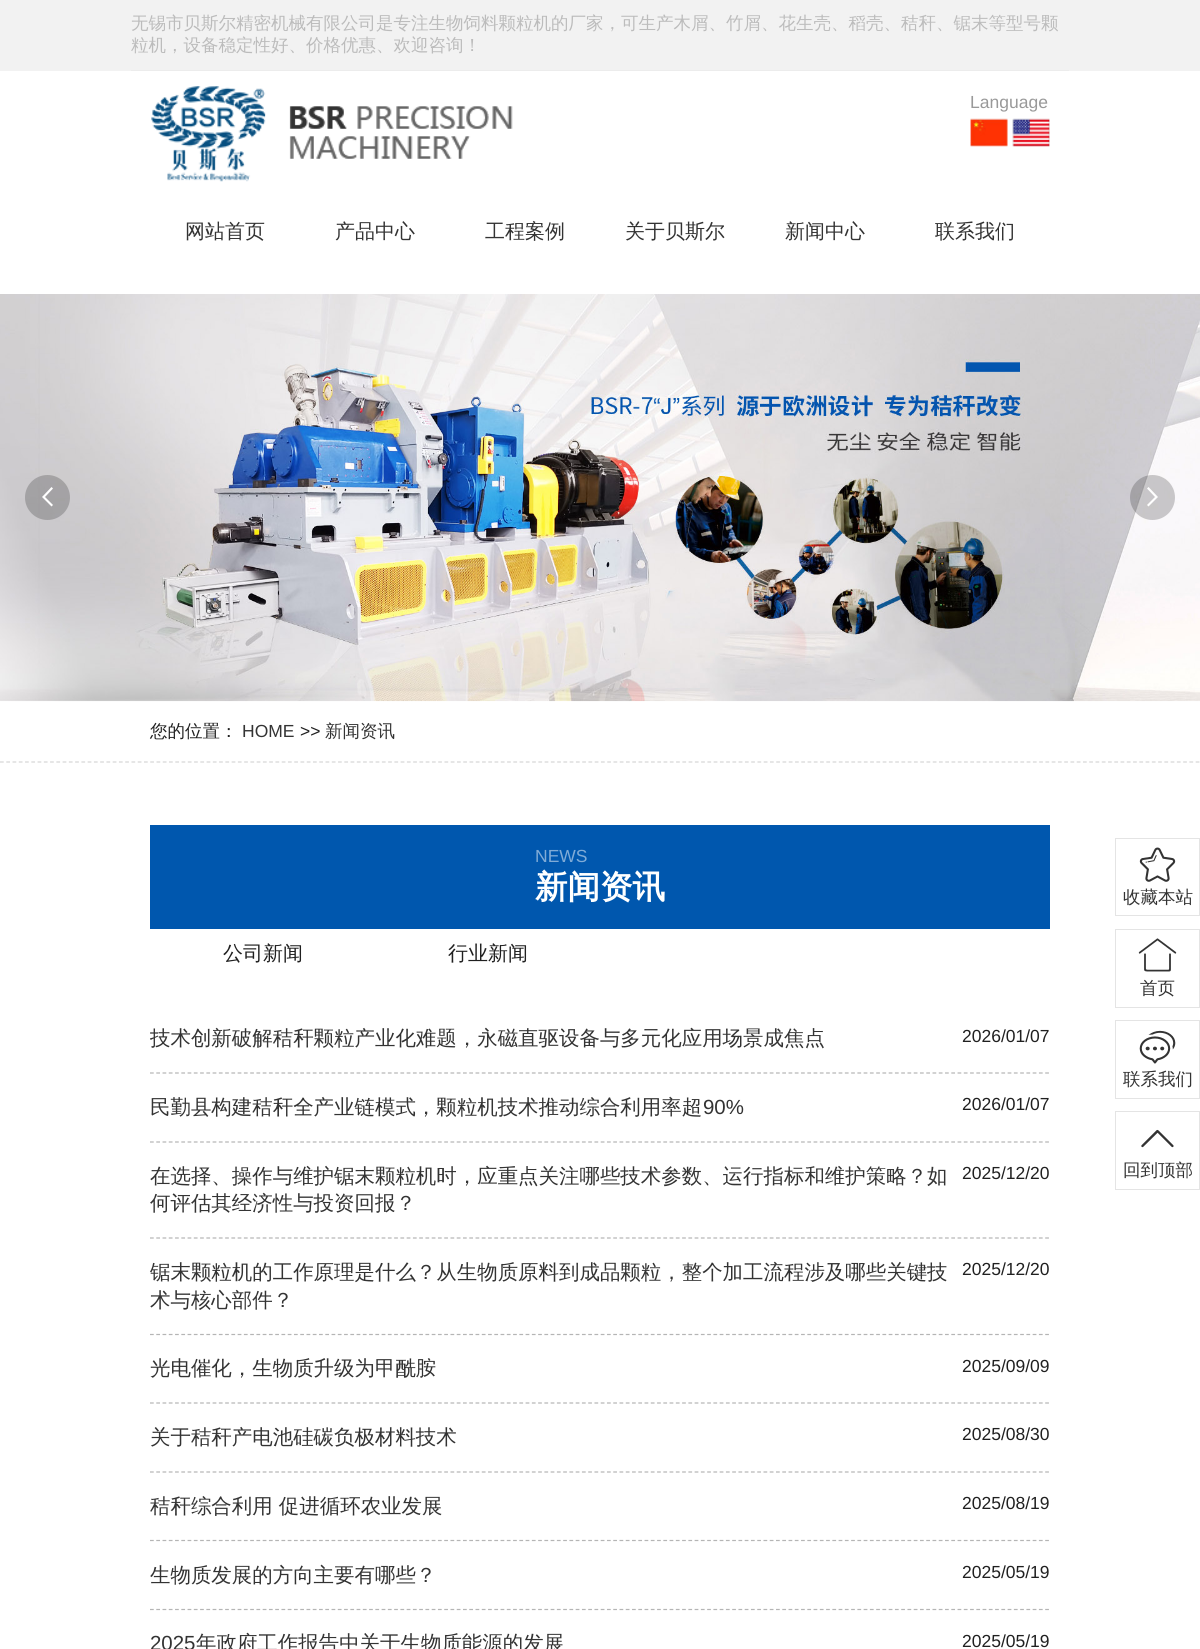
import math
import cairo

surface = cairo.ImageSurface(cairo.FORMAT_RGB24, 1200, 1649)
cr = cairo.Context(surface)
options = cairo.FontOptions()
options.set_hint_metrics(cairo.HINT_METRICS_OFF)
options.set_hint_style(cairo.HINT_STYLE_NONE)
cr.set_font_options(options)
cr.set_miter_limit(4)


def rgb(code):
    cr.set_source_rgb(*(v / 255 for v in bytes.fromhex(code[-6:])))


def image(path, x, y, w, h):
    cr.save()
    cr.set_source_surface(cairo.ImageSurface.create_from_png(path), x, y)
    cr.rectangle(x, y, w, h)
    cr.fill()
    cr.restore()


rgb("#ffffff")
cr.paint()
rgb("#f2f2f2")
cr.rectangle(0, 0, 1200, 71)
cr.fill()
rgb("#ececec")
cr.rectangle(131, 70, 938, 1)
cr.fill()
image("img/1.png", 151, 86, 362, 96)
image("img/2.png", 970, 118, 38, 29)
image("img/3.png", 1012, 118, 38, 29)
image("img/4.png", 0, 294, 1200, 408)
cr.set_source_rgba(0, 0, 0, 0.2)
cr.arc(47.5, 497.5, 22.5, 0, 2 * math.pi)
cr.fill()
rgb("#ffffff")
cr.new_path()
cr.move_to(53, 488.5)
cr.line_to(51.5, 487)
cr.line_to(42, 497)
cr.line_to(51.5, 506.5)
cr.line_to(53, 505)
cr.line_to(45, 497)
cr.close_path()
cr.fill()
cr.set_source_rgba(0, 0, 0, 0.2)
cr.arc(1152.5, 497.5, 22.5, 0, 2 * math.pi)
cr.fill()
rgb("#ffffff")
cr.new_path()
cr.move_to(1147, 488.5)
cr.line_to(1148.5, 487)
cr.line_to(1158, 497)
cr.line_to(1148.5, 506.5)
cr.line_to(1147, 505)
cr.line_to(1155, 497)
cr.close_path()
cr.fill()
cr.rectangle(1115.5, 838.5, 84, 77)
rgb("#e4e4e4")
cr.set_line_width(1)
cr.stroke()
image("img/5.png", 1139, 847, 37, 35)
cr.rectangle(1115.5, 929.5, 84, 78)
cr.stroke()
image("img/6.png", 1138, 938, 39, 34)
cr.rectangle(1115.5, 1020.5, 84, 78)
cr.stroke()
image("img/7.png", 1139, 1030, 37, 34)
cr.rectangle(1115.5, 1111.5, 84, 78)
cr.stroke()
image("img/8.png", 1141, 1129, 33, 19)
cr.new_path()
cr.move_to(0, 762)
cr.line_to(1200, 762)
rgb("#d6d6d6")
cr.set_line_width(1.2)
cr.set_dash([3.75, 2.51])
cr.stroke()
rgb("#0057ae")
cr.rectangle(150, 825, 900, 104)
cr.fill()
cr.new_path()
cr.move_to(150, 1073)
cr.line_to(1050, 1073)
rgb("#b5b5b5")
cr.stroke()
cr.new_path()
cr.move_to(150, 1142)
cr.line_to(1050, 1142)
cr.stroke()
cr.new_path()
cr.move_to(150, 1238)
cr.line_to(1050, 1238)
cr.stroke()
cr.new_path()
cr.move_to(150, 1334.5)
cr.line_to(1050, 1334.5)
cr.stroke()
cr.new_path()
cr.move_to(150, 1403)
cr.line_to(1050, 1403)
cr.stroke()
cr.new_path()
cr.move_to(150, 1472)
cr.line_to(1050, 1472)
cr.stroke()
cr.new_path()
cr.move_to(150, 1540.5)
cr.line_to(1050, 1540.5)
cr.stroke()
cr.new_path()
cr.move_to(150, 1609.5)
cr.line_to(1050, 1609.5)
cr.stroke()
cr.select_font_face("WenQuanYi Zen Hei Medium")
cr.set_font_size(17.5)
rgb("#bcbcbc")
cr.move_to(131, 29)
cr.show_text("无锡市贝斯尔精密机械有限公司是专注生物饲料颗粒机的厂家，可生产木屑、竹屑、花生壳、稻壳、秸秆、锯末等型号颗")
cr.move_to(131, 51)
cr.show_text("粒机，设备稳定性好、价格优惠、欢迎咨询！")
cr.select_font_face("Liberation Sans")
rgb("#999999")
cr.move_to(970, 108)
cr.show_text("Language")
cr.select_font_face("WenQuanYi Zen Hei Medium")
cr.set_font_size(20)
rgb("#333333")
for x, y, s in [
    (185, 238, "网站首页"),
    (335, 238, "产品中心"),
    (485, 238, "工程案例"),
    (625, 238, "关于贝斯尔"),
    (785, 238, "新闻中心"),
    (935, 238, "联系我们"),
]:
    cr.move_to(x, y)
    cr.show_text(s)
cr.set_font_size(17.5)
for x, y, s in [
    (1123, 903, "收藏本站"),
    (1140, 994, "首页"),
    (1123, 1085, "联系我们"),
    (1123, 1176, "回到顶部"),
]:
    cr.move_to(x, y)
    cr.show_text(s)
rgb("#202020")
cr.move_to(150, 737)
cr.show_text("您的位置：")
cr.select_font_face("Liberation Sans")
rgb("#333333")
cr.move_to(242, 737)
cr.show_text("HOME")
rgb("#202020")
cr.move_to(300, 737)
cr.show_text(">>")
cr.select_font_face("WenQuanYi Zen Hei Medium")
rgb("#333333")
cr.move_to(325, 737)
cr.show_text("新闻资讯")
cr.select_font_face("Liberation Sans")
rgb("#80abd7")
cr.move_to(535, 862)
cr.show_text("NEWS")
cr.select_font_face("WenQuanYi Zen Hei", cairo.FONT_SLANT_NORMAL, cairo.FONT_WEIGHT_BOLD)
cr.set_font_size(32.5)
rgb("#ffffff")
cr.move_to(535, 898)
cr.show_text("新闻资讯")
cr.select_font_face("WenQuanYi Zen Hei Medium")
cr.set_font_size(20)
rgb("#202020")
cr.move_to(223, 960)
cr.show_text("公司新闻")
cr.move_to(448, 960)
cr.show_text("行业新闻")
cr.set_font_size(20.45)
rgb("#333333")
cr.move_to(150, 1045)
cr.show_text("技术创新破解秸秆颗粒产业化难题，永磁直驱设备与多元化应用场景成焦点")
cr.select_font_face("Liberation Sans")
cr.set_font_size(17.5)
rgb("#202020")
cr.move_to(962, 1042)
cr.show_text("2026/01/07")
cr.select_font_face("WenQuanYi Zen Hei Medium")
cr.set_font_size(20.45)
rgb("#333333")
cr.move_to(150, 1114)
cr.show_text("民勤县构建秸秆全产业链模式，颗粒机技术推动综合利用率超")
cr.select_font_face("Liberation Sans")
cr.move_to(703, 1114)
cr.show_text("90%")
cr.set_font_size(17.5)
rgb("#202020")
cr.move_to(962, 1110)
cr.show_text("2026/01/07")
cr.select_font_face("WenQuanYi Zen Hei Medium")
cr.set_font_size(20.45)
rgb("#333333")
cr.move_to(150, 1183)
cr.show_text("在选择、操作与维护锯末颗粒机时，应重点关注哪些技术参数、运行指标和维护策略？如")
cr.move_to(150, 1210)
cr.show_text("何评估其经济性与投资回报？")
cr.select_font_face("Liberation Sans")
cr.set_font_size(17.5)
rgb("#202020")
cr.move_to(962, 1179)
cr.show_text("2025/12/20")
cr.select_font_face("WenQuanYi Zen Hei Medium")
cr.set_font_size(20.45)
rgb("#333333")
cr.move_to(150, 1279)
cr.show_text("锯末颗粒机的工作原理是什么？从生物质原料到成品颗粒，整个加工流程涉及哪些关键技")
cr.move_to(150, 1307)
cr.show_text("术与核心部件？")
cr.select_font_face("Liberation Sans")
cr.set_font_size(17.5)
rgb("#202020")
cr.move_to(962, 1275)
cr.show_text("2025/12/20")
cr.select_font_face("WenQuanYi Zen Hei Medium")
cr.set_font_size(20.45)
rgb("#333333")
cr.move_to(150, 1375)
cr.show_text("光电催化，生物质升级为甲酰胺")
cr.select_font_face("Liberation Sans")
cr.set_font_size(17.5)
rgb("#202020")
cr.move_to(962, 1372)
cr.show_text("2025/09/09")
cr.select_font_face("WenQuanYi Zen Hei Medium")
cr.set_font_size(20.45)
rgb("#333333")
cr.move_to(150, 1444)
cr.show_text("关于秸秆产电池硅碳负极材料技术")
cr.select_font_face("Liberation Sans")
cr.set_font_size(17.5)
rgb("#202020")
cr.move_to(962, 1440)
cr.show_text("2025/08/30")
cr.select_font_face("WenQuanYi Zen Hei Medium")
cr.set_font_size(20.45)
rgb("#333333")
cr.move_to(150, 1513)
cr.show_text("秸秆综合利用 促进循环农业发展")
cr.select_font_face("Liberation Sans")
cr.set_font_size(17.5)
rgb("#202020")
cr.move_to(962, 1509)
cr.show_text("2025/08/19")
cr.select_font_face("WenQuanYi Zen Hei Medium")
cr.set_font_size(20.45)
rgb("#333333")
cr.move_to(150, 1582)
cr.show_text("生物质发展的方向主要有哪些？")
cr.select_font_face("Liberation Sans")
cr.set_font_size(17.5)
rgb("#202020")
cr.move_to(962, 1578)
cr.show_text("2025/05/19")
cr.set_font_size(20.45)
rgb("#333333")
cr.move_to(150, 1650)
cr.show_text("2025")
cr.select_font_face("WenQuanYi Zen Hei Medium")
cr.move_to(196, 1650)
cr.show_text("年政府工作报告中关于生物质能源的发展")
cr.select_font_face("Liberation Sans")
cr.set_font_size(17.5)
rgb("#202020")
cr.move_to(962, 1647)
cr.show_text("2025/05/19")
surface.write_to_png("page.png")
